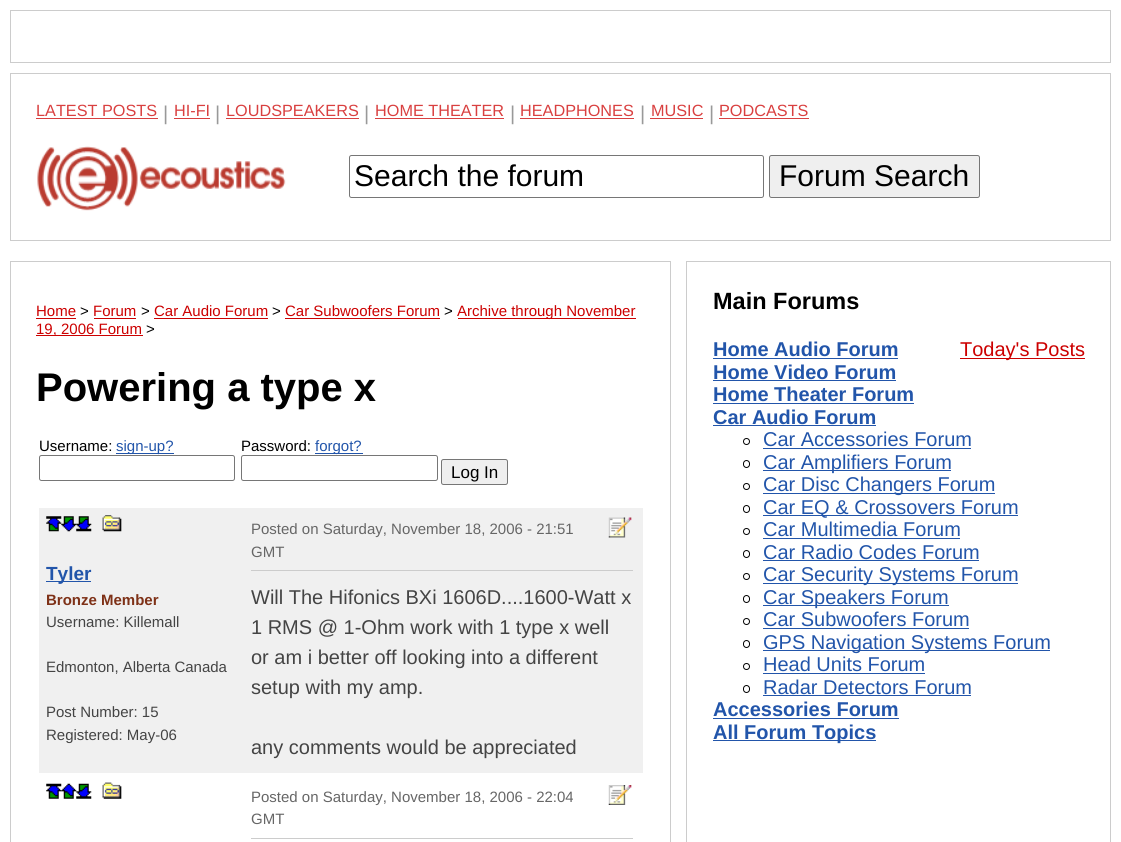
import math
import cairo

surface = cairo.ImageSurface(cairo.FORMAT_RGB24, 1121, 842)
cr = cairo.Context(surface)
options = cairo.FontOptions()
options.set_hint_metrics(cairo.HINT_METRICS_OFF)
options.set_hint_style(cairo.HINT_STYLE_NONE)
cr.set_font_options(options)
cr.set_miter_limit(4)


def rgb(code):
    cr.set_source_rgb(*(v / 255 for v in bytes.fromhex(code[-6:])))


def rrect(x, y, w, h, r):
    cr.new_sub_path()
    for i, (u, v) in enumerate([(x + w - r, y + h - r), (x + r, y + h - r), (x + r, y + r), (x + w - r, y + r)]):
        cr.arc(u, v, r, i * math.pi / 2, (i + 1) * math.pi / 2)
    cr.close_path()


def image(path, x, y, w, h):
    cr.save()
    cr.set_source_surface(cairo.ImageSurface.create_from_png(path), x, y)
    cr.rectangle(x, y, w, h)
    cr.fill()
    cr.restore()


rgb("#ffffff")
cr.paint()
cr.rectangle(10.5, 10.5, 1100, 52)
rgb("#cccccc")
cr.set_line_width(1)
cr.stroke()
cr.rectangle(10.5, 73.5, 1100, 167)
cr.stroke()
for x, y, w, h, color in [
    (36, 118, 122, 1, "#d94040"),
    (174, 118, 36, 1, "#d94040"),
    (226, 118, 133, 1, "#d94040"),
    (375, 118, 129, 1, "#d94040"),
    (520, 118, 114, 1, "#d94040"),
    (650, 118, 53, 1, "#d94040"),
    (719, 118, 90, 1, "#d94040"),
]:
    rgb(color)
    cr.rectangle(x, y, w, h)
    cr.fill()
image("img/1.png", 37, 146, 249, 65)
rrect(349.5, 155.5, 414, 42, 2)
rgb("#767676")
cr.stroke()
rgb("#efefef")
rrect(769.5, 155.5, 210, 42, 2)
cr.fill_preserve()
rgb("#767676")
cr.stroke()
cr.rectangle(10.5, 261.5, 660, 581)
rgb("#cccccc")
cr.stroke()
for x, y, w, h, color in [
    (36, 318, 40, 1, "#cc0000"),
    (94, 318, 42, 1, "#cc0000"),
    (154, 318, 114, 1, "#cc0000"),
    (285, 318, 155, 1, "#cc0000"),
    (458, 318, 178, 1, "#cc0000"),
    (36, 335, 107, 1, "#cc0000"),
    (116, 453, 58, 1, "#2255aa"),
]:
    rgb(color)
    cr.rectangle(x, y, w, h)
    cr.fill()
rrect(39.5, 455.5, 195, 25, 2)
rgb("#767676")
cr.stroke()
rgb("#2255aa")
cr.rectangle(315, 453, 48, 1)
cr.fill()
rrect(241.5, 455.5, 196, 25, 2)
rgb("#767676")
cr.stroke()
rgb("#efefef")
rrect(441.5, 459.5, 66, 25, 2)
cr.fill_preserve()
rgb("#767676")
cr.stroke()
rgb("#f0f0f0")
cr.rectangle(39, 508, 604, 265)
cr.fill()
image("img/2.png", 46, 516, 16, 16)
image("img/3.png", 61, 516, 16, 16)
image("img/4.png", 76, 516, 16, 16)
image("img/5.png", 102, 515, 20, 17)
rgb("#2255aa")
cr.rectangle(46, 581, 45, 1)
cr.fill()
rgb("#cccccc")
cr.rectangle(251, 570, 382, 1)
cr.fill()
image("img/6.png", 608, 517, 24, 21)
image("img/7.png", 46, 783, 16, 16)
image("img/8.png", 61, 783, 16, 16)
image("img/9.png", 76, 783, 16, 16)
image("img/10.png", 102, 782, 20, 17)
cr.rectangle(251, 838, 382, 1)
cr.fill()
image("img/11.png", 608, 785, 24, 20)
cr.rectangle(686.5, 261.5, 424, 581)
cr.stroke()
for x, y, w, h, color in [
    (713, 358, 185, 1, "#2255aa"),
    (713, 380, 183, 1, "#2255aa"),
    (713, 403, 201, 1, "#2255aa"),
    (713, 425, 163, 1, "#2255aa"),
]:
    rgb(color)
    cr.rectangle(x, y, w, h)
    cr.fill()
cr.arc(746.5, 441.5, 3, 0, 2 * math.pi)
rgb("#000000")
cr.stroke()
rgb("#2255aa")
cr.rectangle(763, 448, 208, 1)
cr.fill()
rrect(743.5, 460.5, 6, 7, 3)
rgb("#000000")
cr.stroke()
rgb("#2255aa")
cr.rectangle(763, 470, 188, 1)
cr.fill()
cr.arc(746.5, 486.5, 3, 0, 2 * math.pi)
rgb("#000000")
cr.stroke()
rgb("#2255aa")
cr.rectangle(763, 493, 232, 1)
cr.fill()
rrect(743.5, 505.5, 6, 7, 3)
rgb("#000000")
cr.stroke()
rgb("#2255aa")
cr.rectangle(763, 515, 255, 1)
cr.fill()
cr.arc(746.5, 531.5, 3, 0, 2 * math.pi)
rgb("#000000")
cr.stroke()
rgb("#2255aa")
cr.rectangle(763, 538, 197, 1)
cr.fill()
rrect(743.5, 550.5, 6, 7, 3)
rgb("#000000")
cr.stroke()
rgb("#2255aa")
cr.rectangle(763, 560, 216, 1)
cr.fill()
cr.arc(746.5, 576.5, 3, 0, 2 * math.pi)
rgb("#000000")
cr.stroke()
rgb("#2255aa")
cr.rectangle(763, 583, 255, 1)
cr.fill()
rrect(743.5, 595.5, 6, 7, 3)
rgb("#000000")
cr.stroke()
rgb("#2255aa")
cr.rectangle(763, 605, 186, 1)
cr.fill()
cr.arc(746.5, 621.5, 3, 0, 2 * math.pi)
rgb("#000000")
cr.stroke()
rgb("#2255aa")
cr.rectangle(763, 628, 206, 1)
cr.fill()
rrect(743.5, 640.5, 6, 7, 3)
rgb("#000000")
cr.stroke()
rgb("#2255aa")
cr.rectangle(763, 650, 287, 1)
cr.fill()
cr.arc(746.5, 666.5, 3, 0, 2 * math.pi)
rgb("#000000")
cr.stroke()
rgb("#2255aa")
cr.rectangle(763, 673, 162, 1)
cr.fill()
rrect(743.5, 685.5, 6, 7, 3)
rgb("#000000")
cr.stroke()
for x, y, w, h, color in [
    (763, 695, 208, 1, "#2255aa"),
    (713, 718, 186, 1, "#2255aa"),
    (713, 740, 163, 1, "#2255aa"),
    (960, 358, 125, 1, "#cc0000"),
]:
    rgb(color)
    cr.rectangle(x, y, w, h)
    cr.fill()
cr.select_font_face("Liberation Sans")
cr.set_font_size(16.25)
rgb("#d94040")
cr.move_to(36, 116)
cr.show_text("LATEST POSTS")
cr.set_font_size(20)
rgb("#999999")
cr.move_to(163, 120)
cr.show_text("|")
cr.set_font_size(16.25)
rgb("#d94040")
cr.move_to(174, 116)
cr.show_text("HI-FI")
cr.set_font_size(20)
rgb("#999999")
cr.move_to(215, 120)
cr.show_text("|")
cr.set_font_size(16.25)
rgb("#d94040")
cr.move_to(226, 116)
cr.show_text("LOUDSPEAKERS")
cr.set_font_size(20)
rgb("#999999")
cr.move_to(364, 120)
cr.show_text("|")
cr.set_font_size(16.25)
rgb("#d94040")
cr.move_to(375, 116)
cr.show_text("HOME THEATER")
cr.set_font_size(20)
rgb("#999999")
cr.move_to(510, 120)
cr.show_text("|")
cr.set_font_size(16.25)
rgb("#d94040")
cr.move_to(520, 116)
cr.show_text("HEADPHONES")
cr.set_font_size(20)
rgb("#999999")
cr.move_to(640, 120)
cr.show_text("|")
cr.set_font_size(16.25)
rgb("#d94040")
cr.move_to(651, 116)
cr.show_text("MUSIC")
cr.set_font_size(20)
rgb("#999999")
cr.move_to(709, 120)
cr.show_text("|")
cr.set_font_size(16.25)
rgb("#d94040")
cr.move_to(719, 116)
cr.show_text("PODCASTS")
cr.set_font_size(30)
rgb("#000000")
cr.move_to(354, 186)
cr.show_text("Search the forum")
cr.move_to(779, 186)
cr.show_text("Forum Search")
cr.set_font_size(15)
rgb("#cc0000")
cr.move_to(36, 316)
cr.show_text("Home")
rgb("#000000")
cr.move_to(80, 316)
cr.show_text(">")
rgb("#cc0000")
cr.move_to(93, 316)
cr.show_text("Forum")
rgb("#000000")
cr.move_to(141, 316)
cr.show_text(">")
rgb("#cc0000")
cr.move_to(154, 316)
cr.show_text("Car Audio Forum")
rgb("#000000")
cr.move_to(272, 316)
cr.show_text(">")
rgb("#cc0000")
cr.move_to(285, 316)
cr.show_text("Car Subwoofers Forum")
rgb("#000000")
cr.move_to(444, 316)
cr.show_text(">")
rgb("#cc0000")
cr.move_to(457, 316)
cr.show_text("Archive through November")
cr.move_to(36, 334)
cr.show_text("19, 2006 Forum")
rgb("#000000")
cr.move_to(146, 334)
cr.show_text(">")
cr.select_font_face("Liberation Sans", cairo.FONT_SLANT_NORMAL, cairo.FONT_WEIGHT_BOLD)
cr.set_font_size(40)
cr.move_to(36, 401)
cr.show_text("Powering a type x")
cr.select_font_face("Liberation Sans")
cr.set_font_size(15)
cr.move_to(39, 451)
cr.show_text("Username:")
rgb("#2255aa")
cr.move_to(116, 451)
cr.show_text("sign-up?")
rgb("#000000")
cr.move_to(241, 451)
cr.show_text("Password:")
rgb("#2255aa")
cr.move_to(315, 451)
cr.show_text("forgot?")
cr.set_font_size(17)
rgb("#000000")
cr.move_to(451, 478)
cr.show_text("Log In")
cr.select_font_face("Liberation Sans", cairo.FONT_SLANT_NORMAL, cairo.FONT_WEIGHT_BOLD)
cr.set_font_size(19)
rgb("#2255aa")
cr.move_to(46, 580)
cr.show_text("Tyler")
cr.set_font_size(15)
rgb("#7e3117")
cr.move_to(46, 605)
cr.show_text("Bronze Member")
cr.select_font_face("Liberation Sans")
rgb("#444444")
for x, y, s in [
    (46, 627, "Username: Killemall"),
    (46, 672, "Edmonton, Alberta Canada"),
    (46, 717, "Post Number: 15"),
    (46, 740, "Registered: May-06"),
]:
    cr.move_to(x, y)
    cr.show_text(s)
rgb("#666666")
cr.move_to(251, 534)
cr.show_text("Posted on Saturday, November 18, 2006 - 21:51")
cr.move_to(251, 557)
cr.show_text("GMT")
cr.set_font_size(20)
rgb("#444444")
for x, y, s in [
    (251, 604, "Will The Hifonics BXi 1606D....1600-Watt x"),
    (251, 634, "1 RMS @ 1-Ohm work with 1 type x well"),
    (251, 664, "or am i better off looking into a different"),
    (251, 694, "setup with my amp."),
    (251, 754, "any comments would be appreciated"),
]:
    cr.move_to(x, y)
    cr.show_text(s)
cr.set_font_size(15)
rgb("#666666")
cr.move_to(251, 802)
cr.show_text("Posted on Saturday, November 18, 2006 - 22:04")
cr.move_to(251, 824)
cr.show_text("GMT")
cr.select_font_face("Liberation Sans", cairo.FONT_SLANT_NORMAL, cairo.FONT_WEIGHT_BOLD)
cr.set_font_size(23.5)
rgb("#000000")
cr.move_to(713, 309)
cr.show_text("Main Forums")
cr.set_font_size(20)
rgb("#2255aa")
for x, y, s in [
    (713, 356, "Home Audio Forum"),
    (713, 379, "Home Video Forum"),
    (713, 401, "Home Theater Forum"),
    (713, 424, "Car Audio Forum"),
]:
    cr.move_to(x, y)
    cr.show_text(s)
cr.select_font_face("Liberation Sans")
for x, y, s in [
    (763, 446, "Car Accessories Forum"),
    (763, 469, "Car Amplifiers Forum"),
    (763, 491, "Car Disc Changers Forum"),
    (763, 514, "Car EQ & Crossovers Forum"),
    (763, 536, "Car Multimedia Forum"),
    (763, 559, "Car Radio Codes Forum"),
    (763, 581, "Car Security Systems Forum"),
    (763, 604, "Car Speakers Forum"),
    (763, 626, "Car Subwoofers Forum"),
    (763, 649, "GPS Navigation Systems Forum"),
    (763, 671, "Head Units Forum"),
    (763, 694, "Radar Detectors Forum"),
]:
    cr.move_to(x, y)
    cr.show_text(s)
cr.select_font_face("Liberation Sans", cairo.FONT_SLANT_NORMAL, cairo.FONT_WEIGHT_BOLD)
cr.move_to(713, 716)
cr.show_text("Accessories Forum")
cr.move_to(713, 739)
cr.show_text("All Forum Topics")
cr.select_font_face("Liberation Sans")
rgb("#cc0000")
cr.move_to(960, 356)
cr.show_text("Today's Posts")
surface.write_to_png("page.png")
